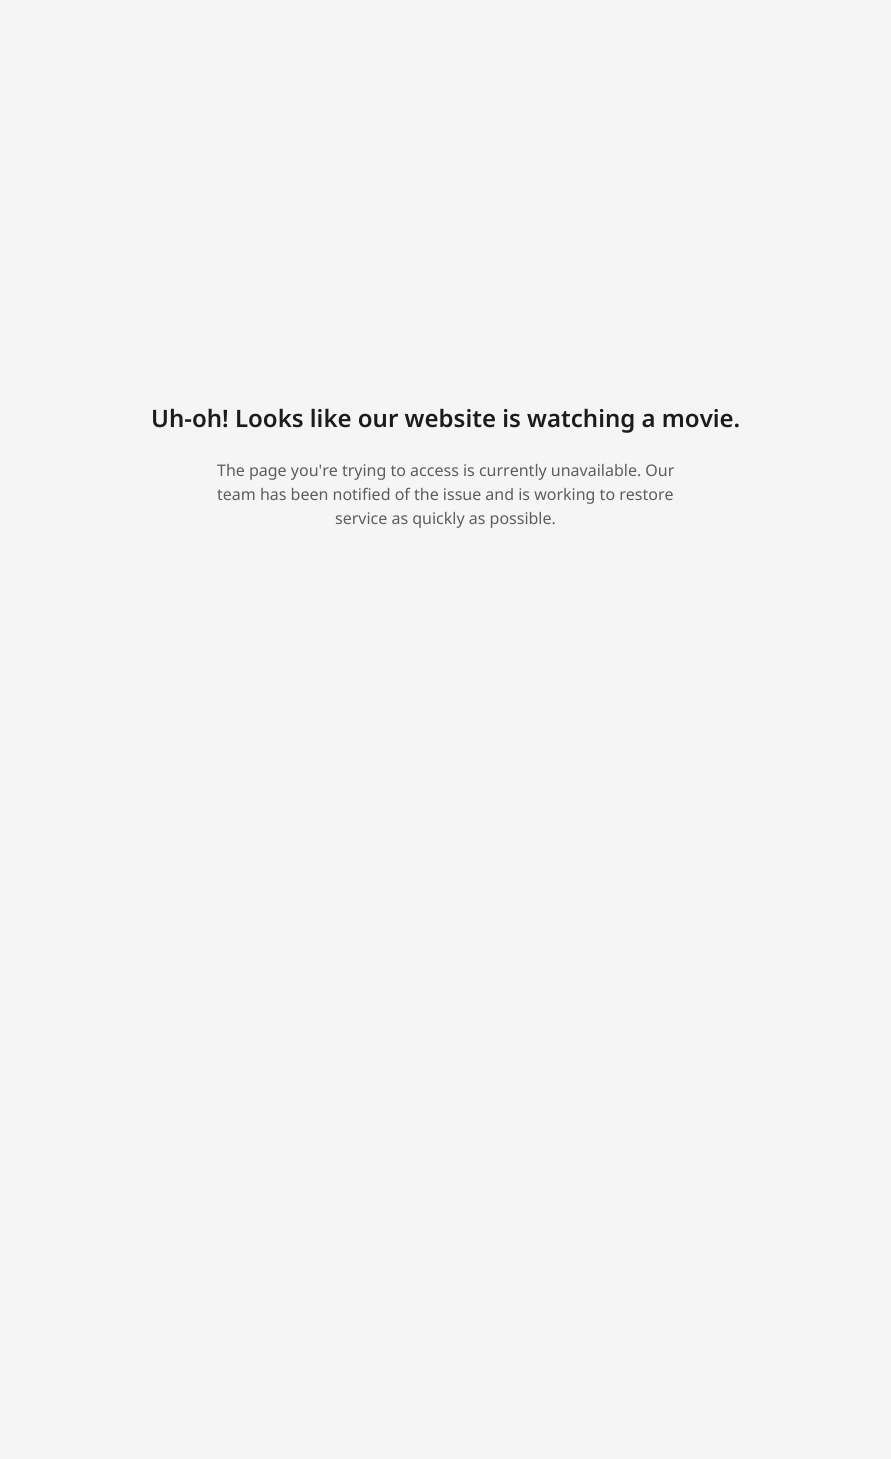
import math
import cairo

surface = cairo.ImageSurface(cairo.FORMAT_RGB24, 891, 1459)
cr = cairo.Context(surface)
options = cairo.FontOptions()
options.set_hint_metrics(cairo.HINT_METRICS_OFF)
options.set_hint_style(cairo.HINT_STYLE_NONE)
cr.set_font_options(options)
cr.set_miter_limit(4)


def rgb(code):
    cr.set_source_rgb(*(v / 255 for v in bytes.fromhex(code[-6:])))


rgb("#f5f5f5")
cr.paint()
cr.select_font_face("Noto Sans SemiBold")
cr.set_font_size(24)
rgb("#1c1c1e")
cr.move_to(151, 427)
cr.show_text("Uh-oh! Looks like our website is watching a movie.")
cr.select_font_face("Noto Sans")
cr.set_font_size(16)
rgb("#5d5d5f")
for x, y, s in [
    (217, 476, "The page you're trying to access is currently unavailable. Our"),
    (217, 500, "team has been notified of the issue and is working to restore"),
    (335, 524, "service as quickly as possible."),
]:
    cr.move_to(x, y)
    cr.show_text(s)
surface.write_to_png("page.png")
